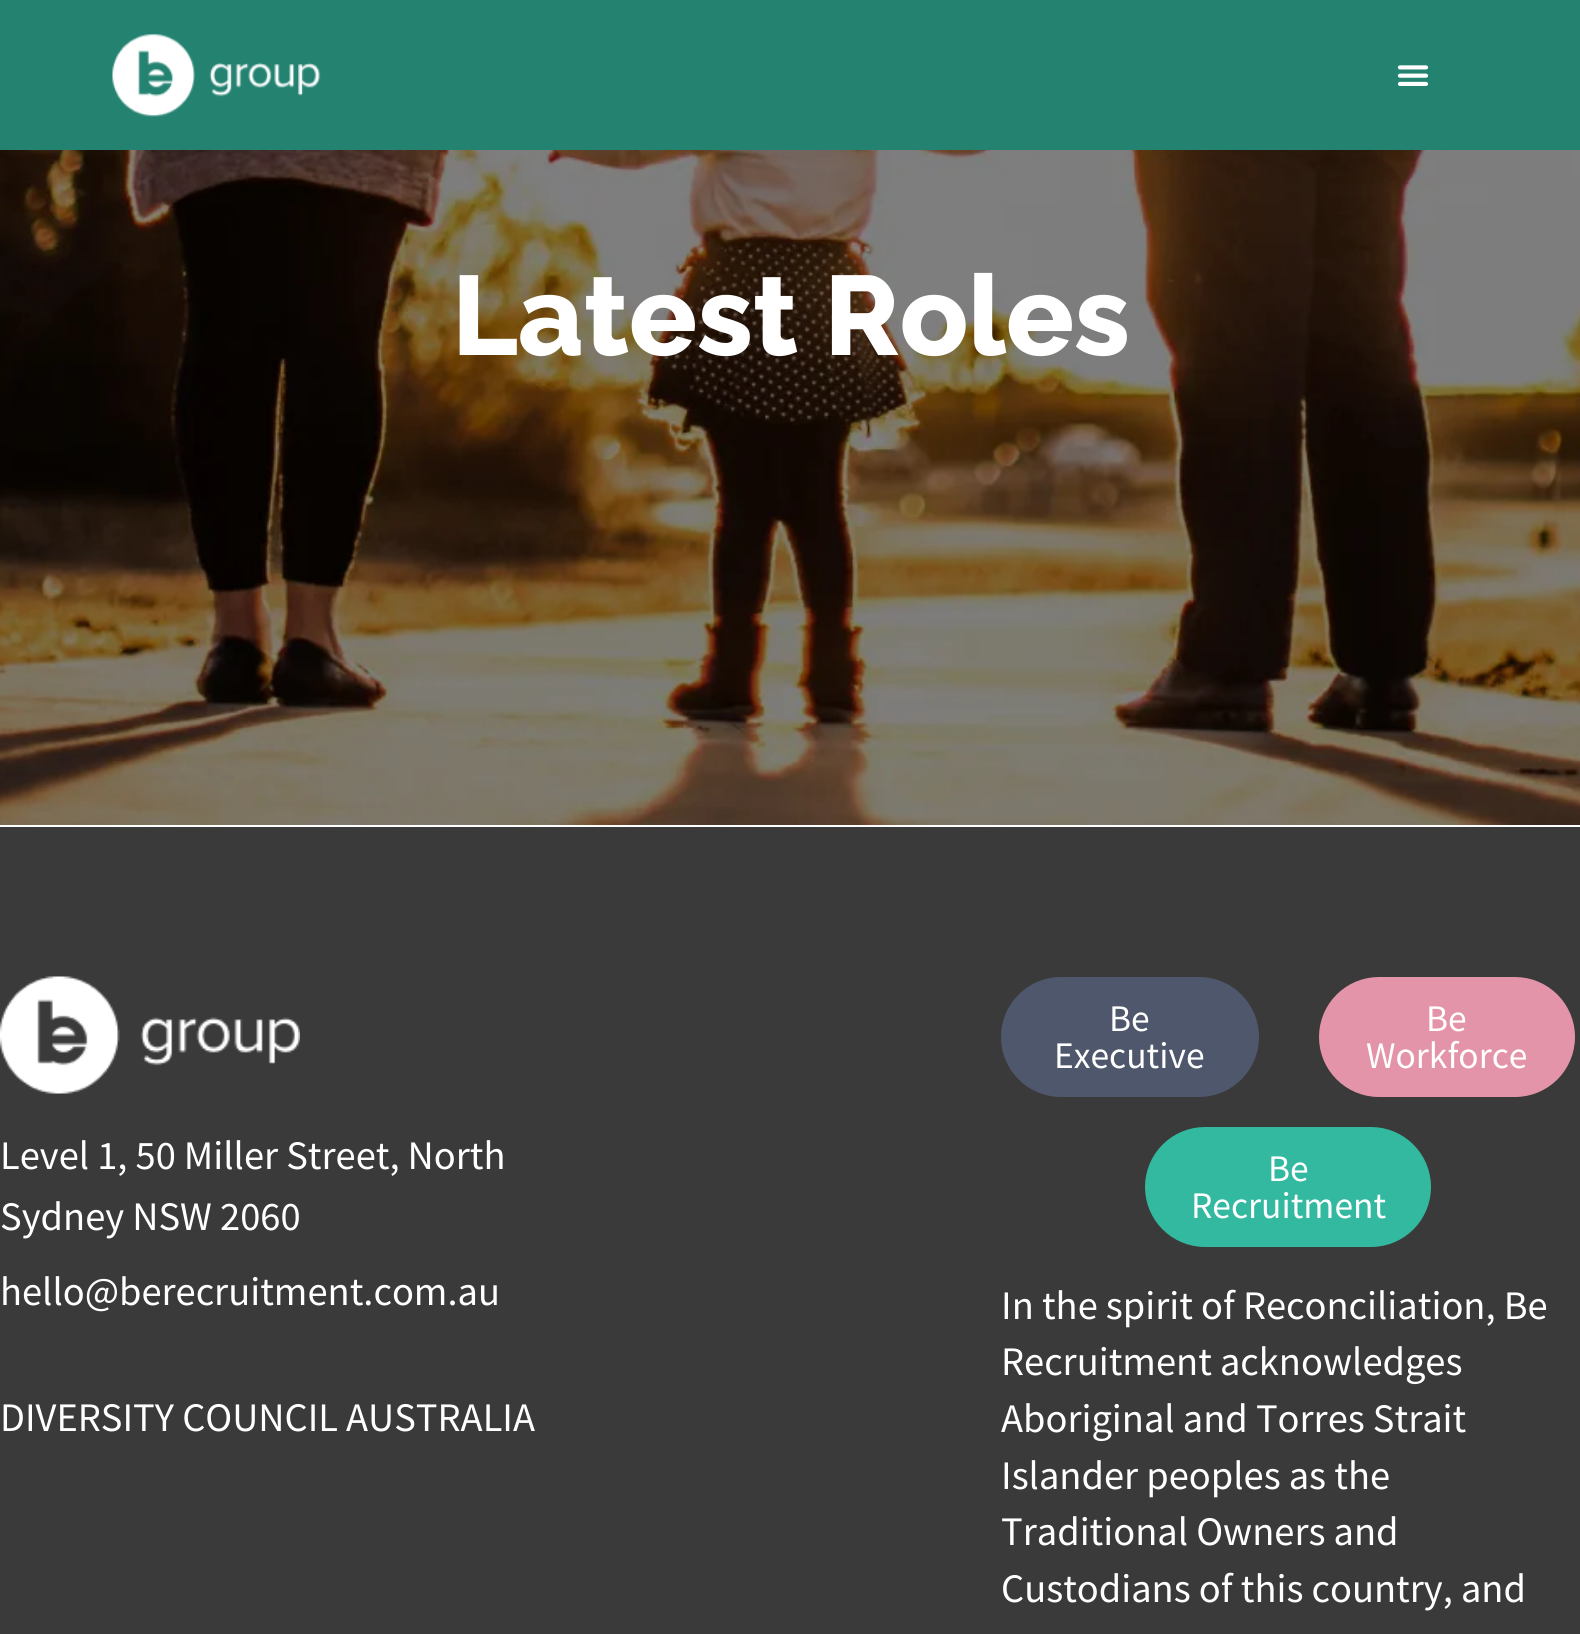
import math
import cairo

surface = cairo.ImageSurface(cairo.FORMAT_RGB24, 1580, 1634)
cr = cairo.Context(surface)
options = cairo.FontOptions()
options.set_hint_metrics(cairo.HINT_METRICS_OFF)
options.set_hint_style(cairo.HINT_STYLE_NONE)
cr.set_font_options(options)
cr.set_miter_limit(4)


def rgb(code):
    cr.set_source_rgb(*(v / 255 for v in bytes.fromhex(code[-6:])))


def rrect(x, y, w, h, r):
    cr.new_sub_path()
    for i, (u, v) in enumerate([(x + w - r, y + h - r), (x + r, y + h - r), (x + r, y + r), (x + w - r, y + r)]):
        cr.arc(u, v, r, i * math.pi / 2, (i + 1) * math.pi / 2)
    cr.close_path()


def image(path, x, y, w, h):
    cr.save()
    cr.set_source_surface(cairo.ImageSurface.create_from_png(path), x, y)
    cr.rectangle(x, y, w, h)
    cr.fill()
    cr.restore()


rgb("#ffffff")
cr.paint()
rgb("#248271")
cr.rectangle(0, 0, 1580, 150)
cr.fill()
image("img/1.png", 112, 34, 209, 83)
image("img/2.png", 1397, 65, 32, 21)
image("img/3.png", 0, 150, 1580, 675)
rgb("#3a3a3a")
cr.rectangle(0, 827, 1580, 807)
cr.fill()
image("img/4.png", 0, 976, 300, 118)
rgb("#4e576b")
rrect(1003.5, 979.5, 253, 115, 57.5)
cr.fill_preserve()
cr.set_line_width(5)
cr.stroke()
rgb("#e394a9")
rrect(1321.5, 979.5, 251, 115, 57.5)
cr.fill_preserve()
cr.stroke()
rgb("#32b99f")
rrect(1147.5, 1129.5, 281, 115, 57.5)
cr.fill_preserve()
cr.stroke()
cr.select_font_face("Raleway ExtraBold")
cr.set_font_size(112.5)
rgb("#ffffff")
cr.move_to(452, 355)
cr.show_text("Latest Roles")
cr.select_font_face("Source Sans Pro")
cr.set_font_size(40.5)
for x, y, s in [
    (0, 1169, "Level 1, 50 Miller Street, North"),
    (0, 1230, "Sydney NSW 2060"),
    (0, 1305, "hello@berecruitment.com.au"),
    (0, 1431, "DIVERSITY COUNCIL AUSTRALIA"),
]:
    cr.move_to(x, y)
    cr.show_text(s)
cr.set_font_size(37.5)
for x, y, s in [
    (1109, 1031, "Be"),
    (1054, 1068, "Executive"),
    (1426, 1031, "Be"),
    (1366, 1068, "Workforce"),
    (1268, 1181, "Be"),
    (1191, 1218, "Recruitment"),
]:
    cr.move_to(x, y)
    cr.show_text(s)
cr.set_font_size(40.5)
for x, y, s in [
    (1001, 1319, "In the spirit of Reconciliation, Be"),
    (1001, 1375, "Recruitment acknowledges"),
    (1001, 1432, "Aboriginal and Torres Strait"),
    (1001, 1489, "Islander peoples as the"),
    (1001, 1545, "Traditional Owners and"),
    (1001, 1602, "Custodians of this country, and"),
]:
    cr.move_to(x, y)
    cr.show_text(s)
surface.write_to_png("page.png")
